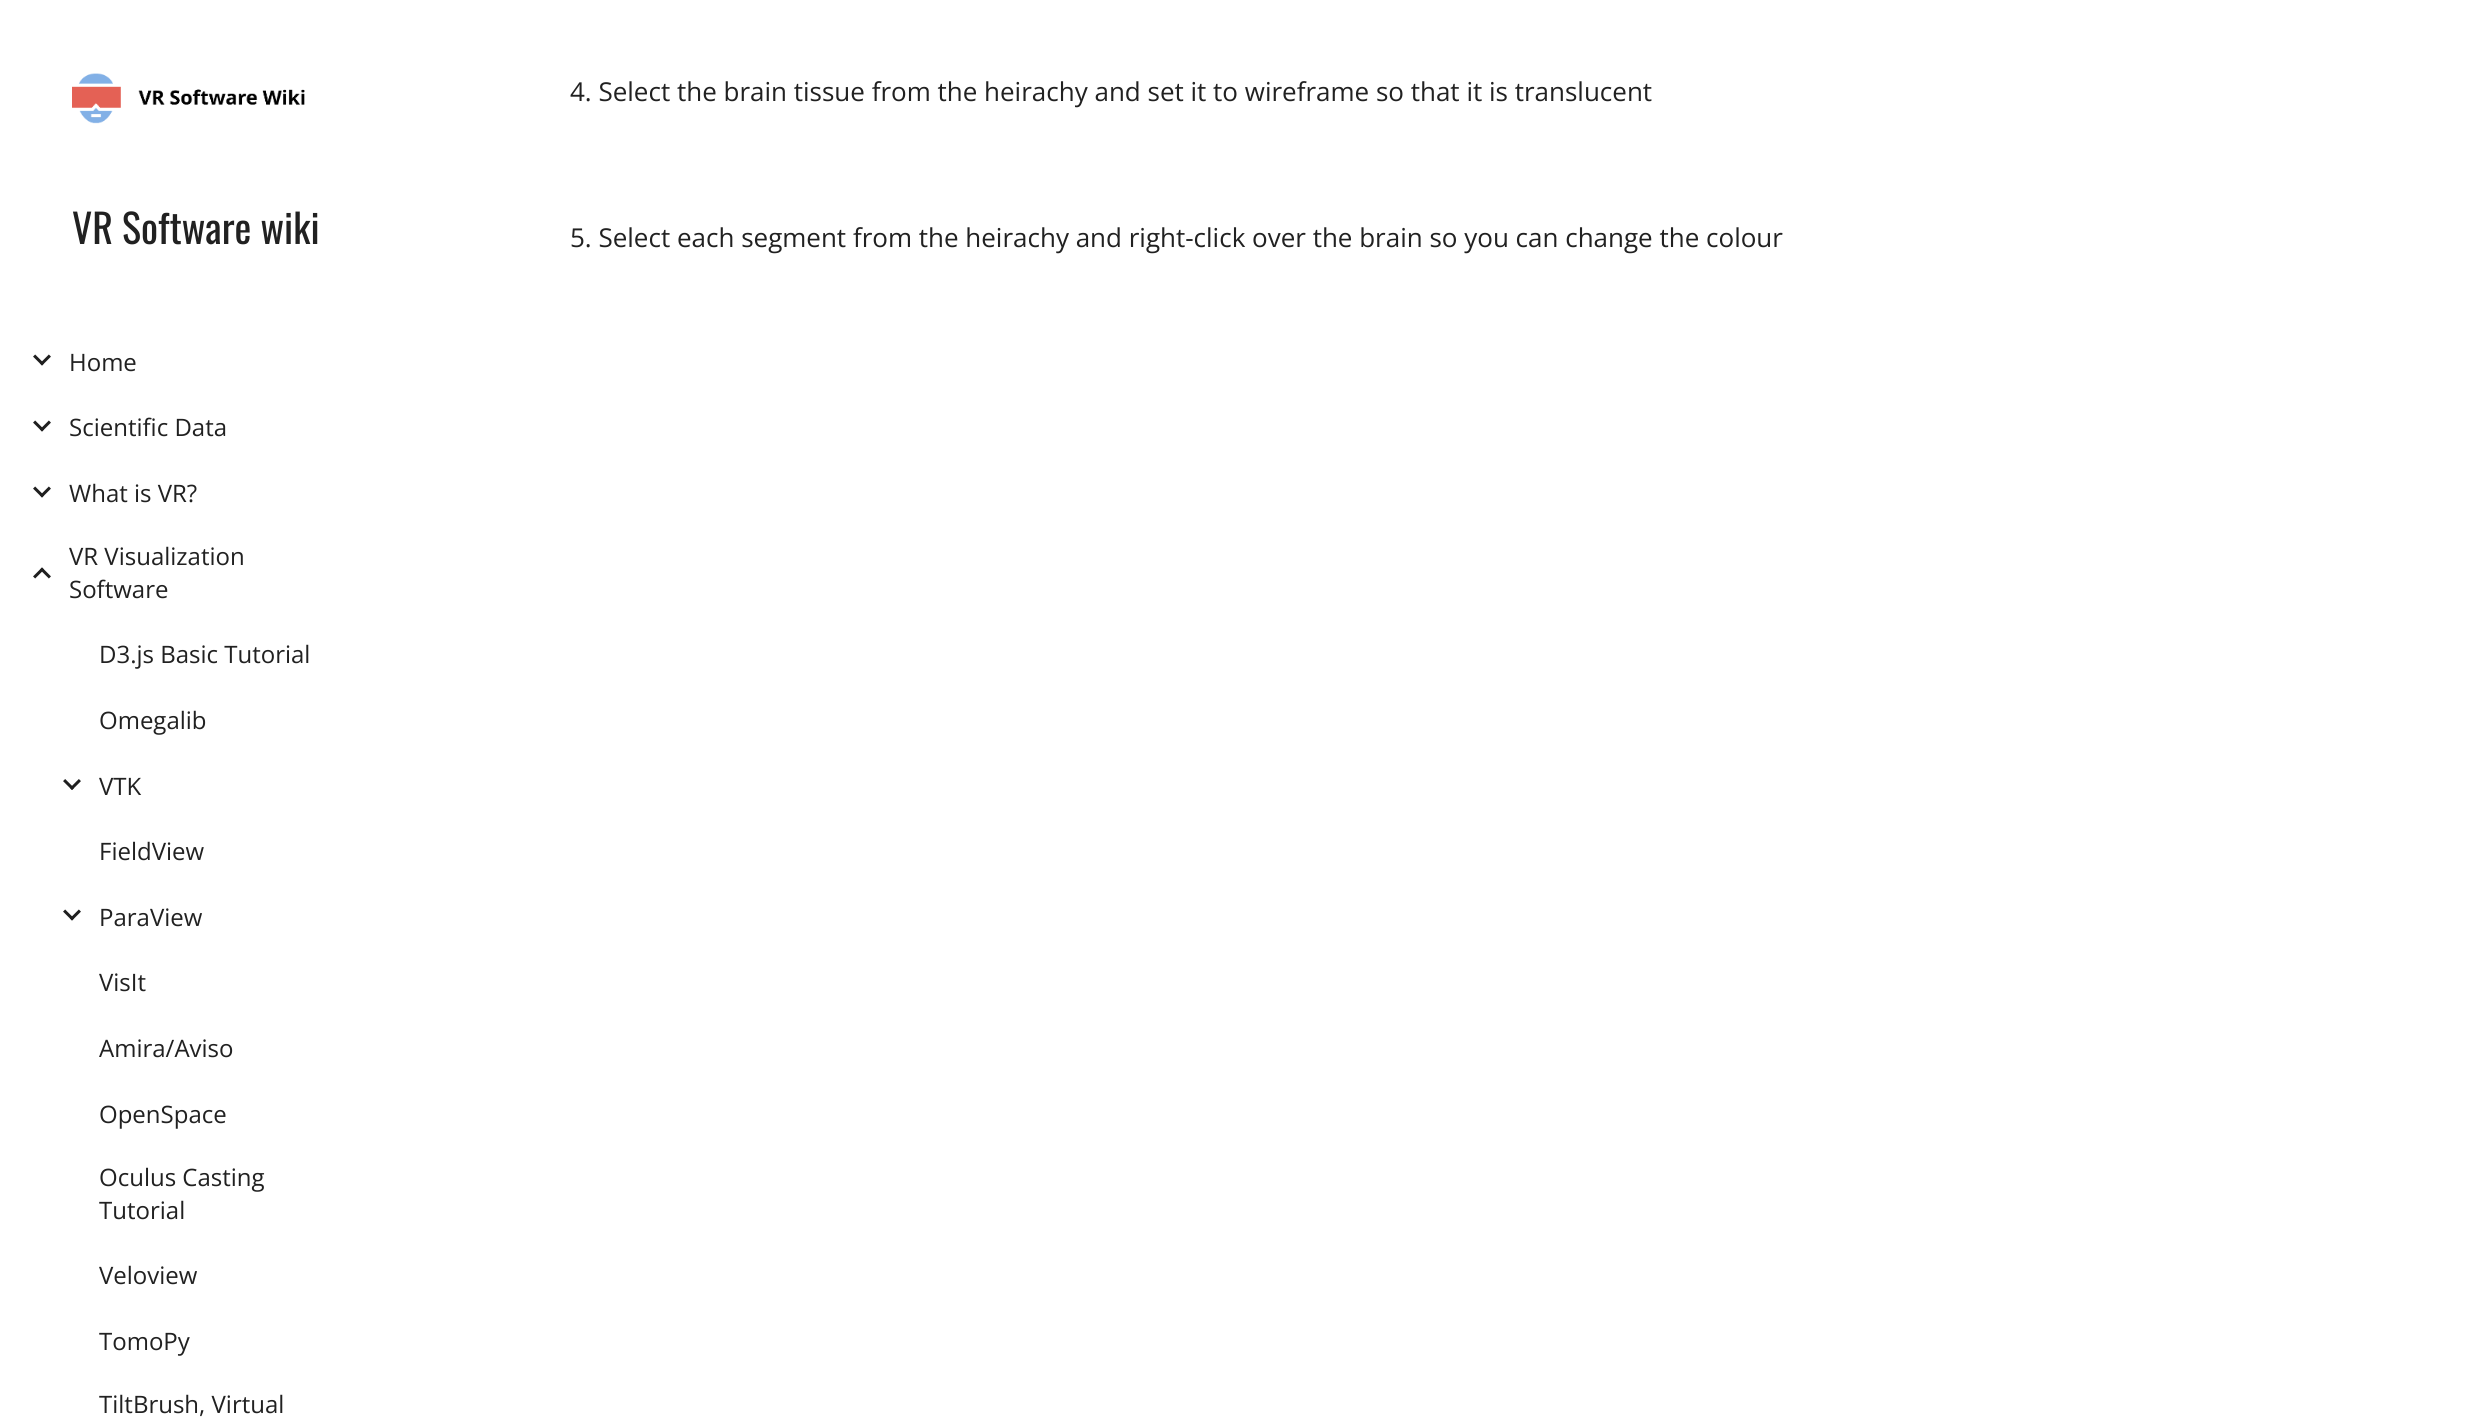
import math
import cairo

surface = cairo.ImageSurface(cairo.FORMAT_RGB24, 2473, 1426)
cr = cairo.Context(surface)
options = cairo.FontOptions()
options.set_hint_metrics(cairo.HINT_METRICS_OFF)
options.set_hint_style(cairo.HINT_STYLE_NONE)
cr.set_font_options(options)
cr.set_miter_limit(4)


def rgb(code):
    cr.set_source_rgb(*(v / 255 for v in bytes.fromhex(code[-6:])))


def image(path, x, y, w, h):
    cr.save()
    cr.set_source_surface(cairo.ImageSurface.create_from_png(path), x, y)
    cr.rectangle(x, y, w, h)
    cr.fill()
    cr.restore()


rgb("#ffffff")
cr.paint()
image("img/1.png", 72, 73, 233, 51)
image("img/2.png", 33, 354, 18, 12)
image("img/2.png", 33, 420, 18, 12)
image("img/2.png", 33, 486, 18, 12)
image("img/3.png", 33, 567, 18, 12)
image("img/4.png", 63, 779, 18, 11)
image("img/2.png", 63, 909, 18, 12)
cr.select_font_face("Open Sans")
cr.set_font_size(26)
rgb("#212121")
cr.move_to(570, 101)
cr.show_text("4. Select the brain tissue from the heirachy and set it to wireframe so that it is translucent")
cr.move_to(570, 247)
cr.show_text("5. Select each segment from the heirachy and right-click over the brain so you can change the colour")
cr.select_font_face("Oswald")
cr.set_font_size(40)
cr.move_to(72, 244)
cr.show_text("VR Software wiki")
cr.select_font_face("Open Sans")
cr.set_font_size(24)
for x, y, s in [
    (69, 371, "Home"),
    (69, 436, "Scientific Data"),
    (69, 502, "What is VR?"),
    (69, 565, "VR Visualization"),
    (69, 598, "Software"),
    (99, 663, "D3.js Basic Tutorial"),
    (99, 729, "Omegalib"),
    (99, 795, "VTK"),
    (99, 860, "FieldView"),
    (99, 926, "ParaView"),
    (99, 991, "VisIt"),
    (99, 1057, "Amira/Aviso"),
    (99, 1123, "OpenSpace"),
    (99, 1186, "Oculus Casting"),
    (99, 1219, "Tutorial"),
    (99, 1284, "Veloview"),
    (99, 1350, "TomoPy"),
    (99, 1413, "TiltBrush, Virtual"),
]:
    cr.move_to(x, y)
    cr.show_text(s)
surface.write_to_png("page.png")
